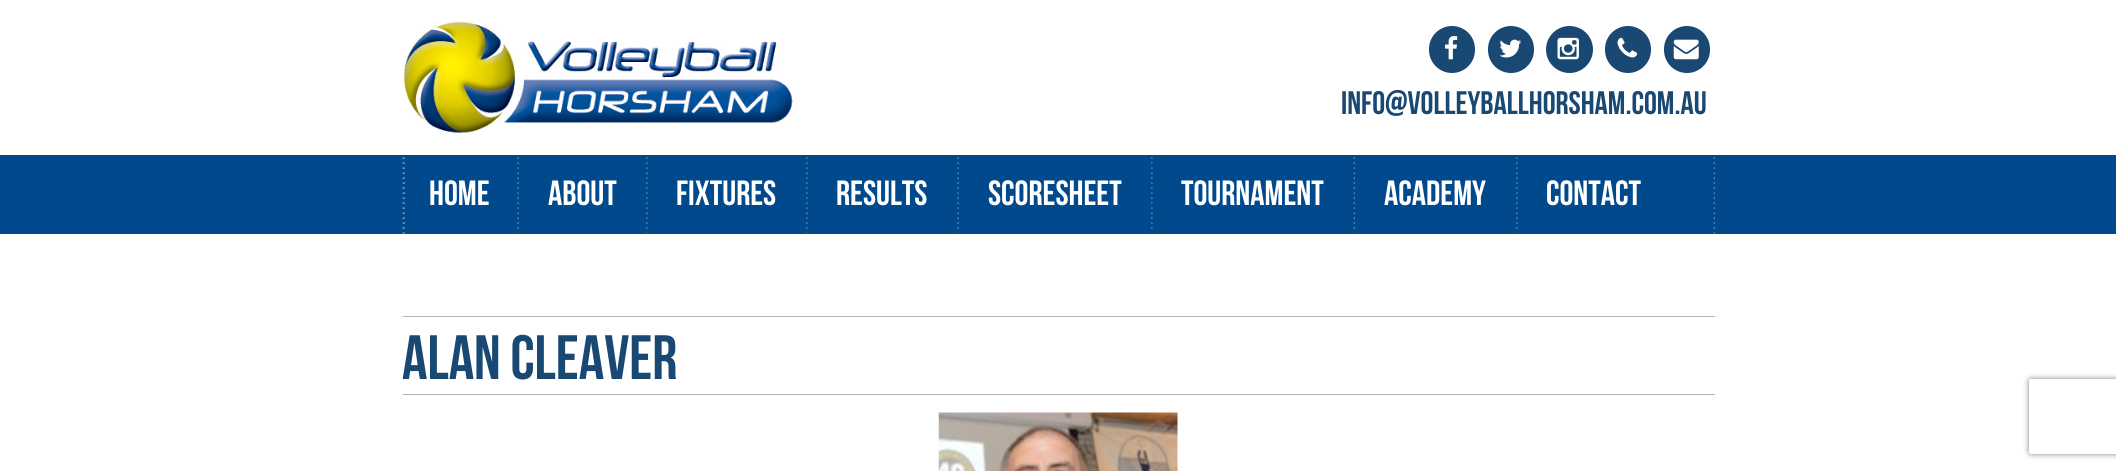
import math
import cairo

surface = cairo.ImageSurface(cairo.FORMAT_RGB24, 2116, 471)
cr = cairo.Context(surface)
options = cairo.FontOptions()
options.set_hint_metrics(cairo.HINT_METRICS_OFF)
options.set_hint_style(cairo.HINT_STYLE_NONE)
cr.set_font_options(options)
cr.set_miter_limit(4)


def rgb(code):
    cr.set_source_rgb(*(v / 255 for v in bytes.fromhex(code[-6:])))


def rrect(x, y, w, h, r):
    cr.new_sub_path()
    for i, (u, v) in enumerate([(x + w - r, y + h - r), (x + r, y + h - r), (x + r, y + r), (x + w - r, y + r)]):
        cr.arc(u, v, r, i * math.pi / 2, (i + 1) * math.pi / 2)
    cr.close_path()


def soft_shadow(x, y, w, h, r, blur, alpha):
    cr.push_group_with_content(cairo.CONTENT_ALPHA)
    cr.set_operator(cairo.OPERATOR_SOURCE)
    for i in range(15, -16, -2):
        e = blur * i / 6
        if min(w, h) + 2 * e > 0:
            cr.set_source_rgba(0, 0, 0, alpha * math.erfc((i - 1) / 8.5) / 2)
            rrect(x - e, y - e, w + 2 * e, h + 2 * e, max(0, min(r + e + blur * .6, min(w, h) / 2 + e)))
            cr.fill()
    cr.mask(cr.pop_group())


def image(path, x, y, w, h):
    cr.save()
    cr.set_source_surface(cairo.ImageSurface.create_from_png(path), x, y)
    cr.rectangle(x, y, w, h)
    cr.fill()
    cr.restore()


rgb("#ffffff")
cr.paint()
image("img/1.png", 404, 20, 389, 114)
rgb("#194873")
rrect(1429, 26, 46, 47, 23)
cr.fill()
image("img/2.png", 1445, 36, 13, 24)
rrect(1488, 26, 46, 47, 23)
cr.fill()
image("img/3.png", 1499, 39, 23, 19)
cr.arc(1569.5, 49.5, 23.5, 0, 2 * math.pi)
cr.fill()
image("img/4.png", 1557, 37, 22, 23)
rrect(1605, 26, 46, 47, 23)
cr.fill()
image("img/5.png", 1617, 37, 21, 21)
rrect(1664, 26, 46, 47, 23)
cr.fill()
image("img/6.png", 1673, 39, 26, 21)
rgb("#00498d")
cr.rectangle(0, 155, 2116, 79)
cr.fill()
image("img/7.png", 1713, 157, 2, 77)
image("img/8.png", 402, 157, 3, 77)
image("img/9.png", 517, 157, 2, 76)
image("img/10.png", 646, 157, 2, 76)
image("img/10.png", 806, 157, 2, 76)
image("img/9.png", 957, 157, 2, 76)
image("img/10.png", 1151, 157, 2, 76)
image("img/11.png", 1353, 157, 2, 76)
image("img/10.png", 1516, 157, 2, 76)
rgb("#b2b2b2")
cr.rectangle(403, 316, 1312, 1)
cr.fill()
cr.rectangle(403, 394, 1312, 1)
cr.fill()
image("img/12.png", 938, 412, 240, 59)
cr.save()
cr.set_fill_rule(cairo.FILL_RULE_EVEN_ODD)
cr.new_path()
cr.move_to(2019, 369)
cr.line_to(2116, 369)
cr.line_to(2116, 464)
cr.line_to(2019, 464)
cr.close_path()
cr.move_to(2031.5, 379)
cr.line_to(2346.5, 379)
cr.curve_to(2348, 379, 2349, 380, 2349, 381.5)
cr.line_to(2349, 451.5)
cr.curve_to(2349, 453, 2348, 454, 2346.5, 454)
cr.line_to(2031.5, 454)
cr.curve_to(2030, 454, 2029, 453, 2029, 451.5)
cr.line_to(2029, 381.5)
cr.curve_to(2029, 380, 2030, 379, 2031.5, 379)
cr.close_path()
cr.clip()
rgb("#808080")
soft_shadow(2029, 379, 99, 75, 2.5, 3, 1)
cr.restore()
cr.select_font_face("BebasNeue")
cr.set_font_size(32.5)
rgb("#194873")
cr.move_to(1341, 114)
cr.show_text("INFO@VOLLEYBALLHORSHAM.COM.AU")
cr.set_font_size(35)
rgb("#ffffff")
for x, y, s in [
    (429, 205, "Home"),
    (548, 205, "About"),
    (676, 205, "Fixtures"),
    (836, 205, "Results"),
    (988, 205, "Scoresheet"),
    (1181, 205, "Tournament"),
    (1384, 205, "Academy"),
    (1546, 205, "Contact"),
]:
    cr.move_to(x, y)
    cr.show_text(s)
cr.set_font_size(62.5)
rgb("#194873")
cr.move_to(402, 379)
cr.show_text("Alan Cleaver")
surface.write_to_png("page.png")
